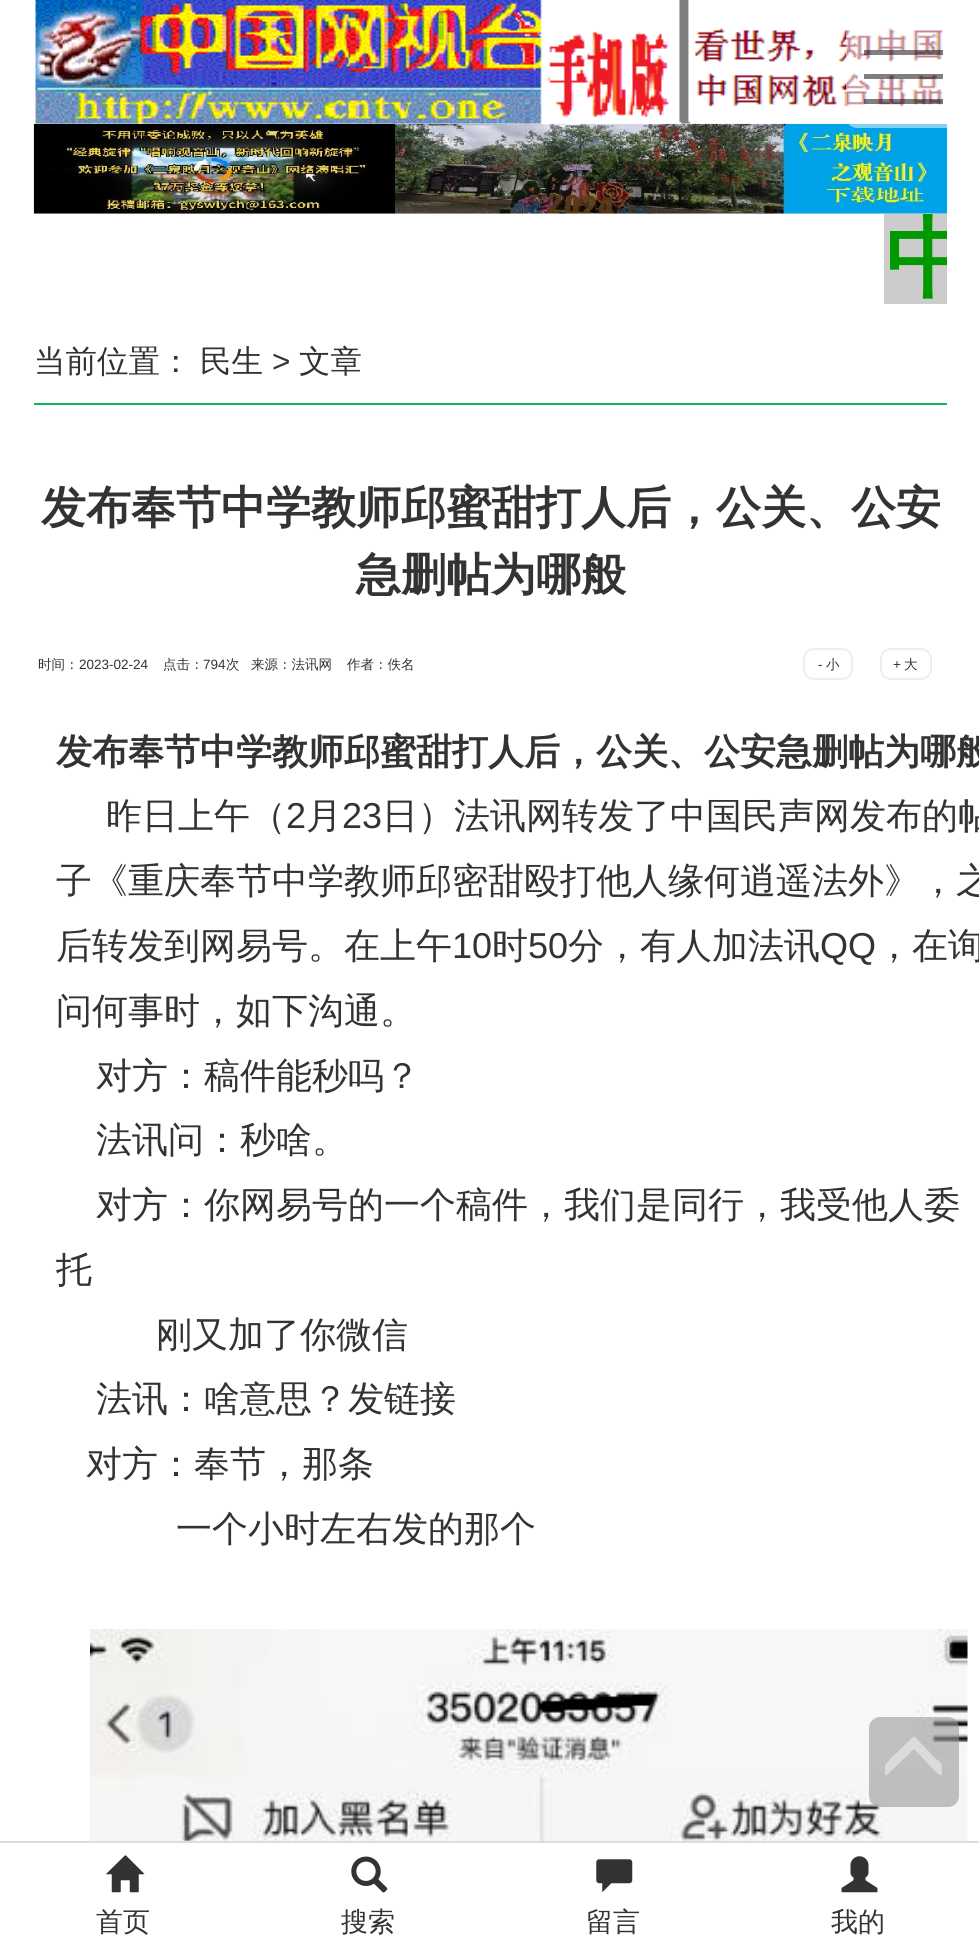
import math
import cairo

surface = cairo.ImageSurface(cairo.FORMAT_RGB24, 979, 1940)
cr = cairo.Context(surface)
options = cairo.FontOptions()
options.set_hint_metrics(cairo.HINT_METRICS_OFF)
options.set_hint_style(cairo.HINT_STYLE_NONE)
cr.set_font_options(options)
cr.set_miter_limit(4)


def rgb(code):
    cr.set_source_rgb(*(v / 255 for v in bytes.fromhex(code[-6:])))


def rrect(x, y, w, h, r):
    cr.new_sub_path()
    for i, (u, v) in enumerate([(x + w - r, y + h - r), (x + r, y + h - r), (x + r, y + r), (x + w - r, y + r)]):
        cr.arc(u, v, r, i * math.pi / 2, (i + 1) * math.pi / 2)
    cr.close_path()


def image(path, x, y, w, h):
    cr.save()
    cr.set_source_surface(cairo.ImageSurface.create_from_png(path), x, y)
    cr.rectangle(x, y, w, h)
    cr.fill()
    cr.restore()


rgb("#ffffff")
cr.paint()
image("img/1.png", 35, 0, 909, 124)
image("img/2.png", 33, 123, 915, 91)
cr.set_source_rgba(1, 1, 1, 0.5)
rrect(846, 23, 113, 105, 11)
cr.fill()
cr.set_source_rgba(0, 0, 0, 0.5)
cr.rectangle(864, 50, 79, 5)
cr.fill()
cr.rectangle(864, 74, 79, 5)
cr.fill()
cr.rectangle(864, 99, 79, 5)
cr.fill()
rgb("#cccccc")
cr.rectangle(884, 214, 63, 90)
cr.fill()
rgb("#0eb551")
cr.rectangle(34, 403, 913, 2)
cr.fill()
rrect(804, 649, 48, 30, 10)
rgb("#eeeeee")
cr.stroke()
rrect(881, 649, 50, 30, 10)
cr.stroke()
image("img/3.png", 90, 1629, 878, 212)
cr.set_source_rgba(0.6, 0.6, 0.6, 0.6)
rrect(869, 1717, 90, 90, 11)
cr.fill()
cr.set_source_rgba(0.933, 0.933, 0.933, 0.6)
cr.new_path()
cr.move_to(915, 1737)
cr.line_to(932, 1755)
cr.curve_to(942, 1765, 942, 1761, 942, 1771)
cr.curve_to(942, 1778, 940, 1776, 935, 1771)
cr.line_to(914, 1749)
cr.line_to(887, 1775)
cr.curve_to(886, 1776, 885, 1775, 885, 1774)
cr.curve_to(885, 1764, 884, 1766, 890, 1759)
cr.line_to(913, 1737)
cr.close_path()
cr.fill()
rgb("#dddddd")
cr.rectangle(0, 1841, 979, 2)
cr.fill()
image("img/4.png", 106, 1855, 39, 38)
image("img/5.png", 351, 1856, 37, 37)
image("img/6.png", 596, 1859, 37, 34)
image("img/7.png", 841, 1856, 37, 37)
cr.save()
cr.rectangle(34, 214, 913, 90)
cr.clip()
cr.select_font_face("WenQuanYi Zen Hei", cairo.FONT_SLANT_NORMAL, cairo.FONT_WEIGHT_BOLD)
cr.set_font_size(90)
rgb("#009900")
cr.move_to(885, 289)
cr.show_text("中")
cr.restore()
cr.select_font_face("WenQuanYi Zen Hei Medium")
cr.set_font_size(31.5)
rgb("#333333")
cr.move_to(34, 372)
cr.show_text("当前位置：")
cr.move_to(200, 372)
cr.show_text("民生")
cr.select_font_face("Liberation Sans")
cr.move_to(272, 372)
cr.show_text(">")
cr.select_font_face("WenQuanYi Zen Hei Medium")
cr.move_to(299, 372)
cr.show_text("文章")
cr.select_font_face("WenQuanYi Zen Hei", cairo.FONT_SLANT_NORMAL, cairo.FONT_WEIGHT_BOLD)
cr.set_font_size(45)
cr.move_to(41, 523)
cr.show_text("发布奉节中学教师邱蜜甜打人后，公关、公安")
cr.move_to(356, 590)
cr.show_text("急删帖为哪般")
cr.select_font_face("WenQuanYi Zen Hei Medium")
cr.set_font_size(13.5)
cr.move_to(38, 669)
cr.show_text("时间：")
cr.select_font_face("Liberation Sans")
cr.move_to(79, 669)
cr.show_text("2023-02-24")
cr.select_font_face("WenQuanYi Zen Hei Medium")
cr.move_to(163, 669)
cr.show_text("点击：")
cr.select_font_face("Liberation Sans")
cr.move_to(203, 669)
cr.show_text("794")
cr.select_font_face("WenQuanYi Zen Hei Medium")
for x, y, s in [
    (226, 669, "次"),
    (251, 669, "来源：法讯网"),
    (347, 669, "作者：佚名"),
]:
    cr.move_to(x, y)
    cr.show_text(s)
cr.select_font_face("Liberation Sans")
cr.move_to(818, 669)
cr.show_text("-")
cr.select_font_face("WenQuanYi Zen Hei Medium")
cr.move_to(826, 669)
cr.show_text("小")
cr.select_font_face("Liberation Sans")
cr.move_to(893, 669)
cr.show_text("+")
cr.select_font_face("WenQuanYi Zen Hei Medium")
cr.move_to(904, 669)
cr.show_text("大")
cr.select_font_face("WenQuanYi Zen Hei", cairo.FONT_SLANT_NORMAL, cairo.FONT_WEIGHT_BOLD)
cr.set_font_size(36)
cr.move_to(56, 764)
cr.show_text("发布奉节中学教师邱蜜甜打人后，公关、公安急删帖为哪般")
cr.select_font_face("WenQuanYi Zen Hei Medium")
cr.move_to(106, 828)
cr.show_text("昨日上午（")
cr.select_font_face("Liberation Sans")
cr.move_to(286, 828)
cr.show_text("2")
cr.select_font_face("WenQuanYi Zen Hei Medium")
cr.move_to(306, 828)
cr.show_text("月")
cr.select_font_face("Liberation Sans")
cr.move_to(342, 828)
cr.show_text("23")
cr.select_font_face("WenQuanYi Zen Hei Medium")
for x, y, s in [
    (382, 828, "日）法讯网转发了中国民声网发布的帖"),
    (56, 893, "子《重庆奉节中学教师邱密甜殴打他人缘何逍遥法外》，之"),
    (56, 958, "后转发到网易号。在上午"),
]:
    cr.move_to(x, y)
    cr.show_text(s)
cr.select_font_face("Liberation Sans")
cr.move_to(452, 958)
cr.show_text("10")
cr.select_font_face("WenQuanYi Zen Hei Medium")
cr.move_to(492, 958)
cr.show_text("时")
cr.select_font_face("Liberation Sans")
cr.move_to(528, 958)
cr.show_text("50")
cr.select_font_face("WenQuanYi Zen Hei Medium")
cr.move_to(568, 958)
cr.show_text("分，有人加法讯")
cr.select_font_face("Liberation Sans")
cr.move_to(820, 958)
cr.show_text("QQ")
cr.select_font_face("WenQuanYi Zen Hei Medium")
for x, y, s in [
    (876, 958, "，在询"),
    (56, 1023, "问何事时，如下沟通。"),
    (96, 1088, "对方：稿件能秒吗？"),
    (96, 1152, "法讯问：秒啥。"),
    (96, 1217, "对方：你网易号的一个稿件，我们是同行，我受他人委"),
    (56, 1282, "托"),
    (156, 1347, "刚又加了你微信"),
    (96, 1411, "法讯：啥意思？发链接"),
    (86, 1476, "对方：奉节，那条"),
    (176, 1541, "一个小时左右发的那个"),
]:
    cr.move_to(x, y)
    cr.show_text(s)
cr.set_font_size(27)
for x, y, s in [
    (96, 1931, "首页"),
    (341, 1931, "搜索"),
    (586, 1931, "留言"),
    (831, 1931, "我的"),
]:
    cr.move_to(x, y)
    cr.show_text(s)
surface.write_to_png("page.png")
